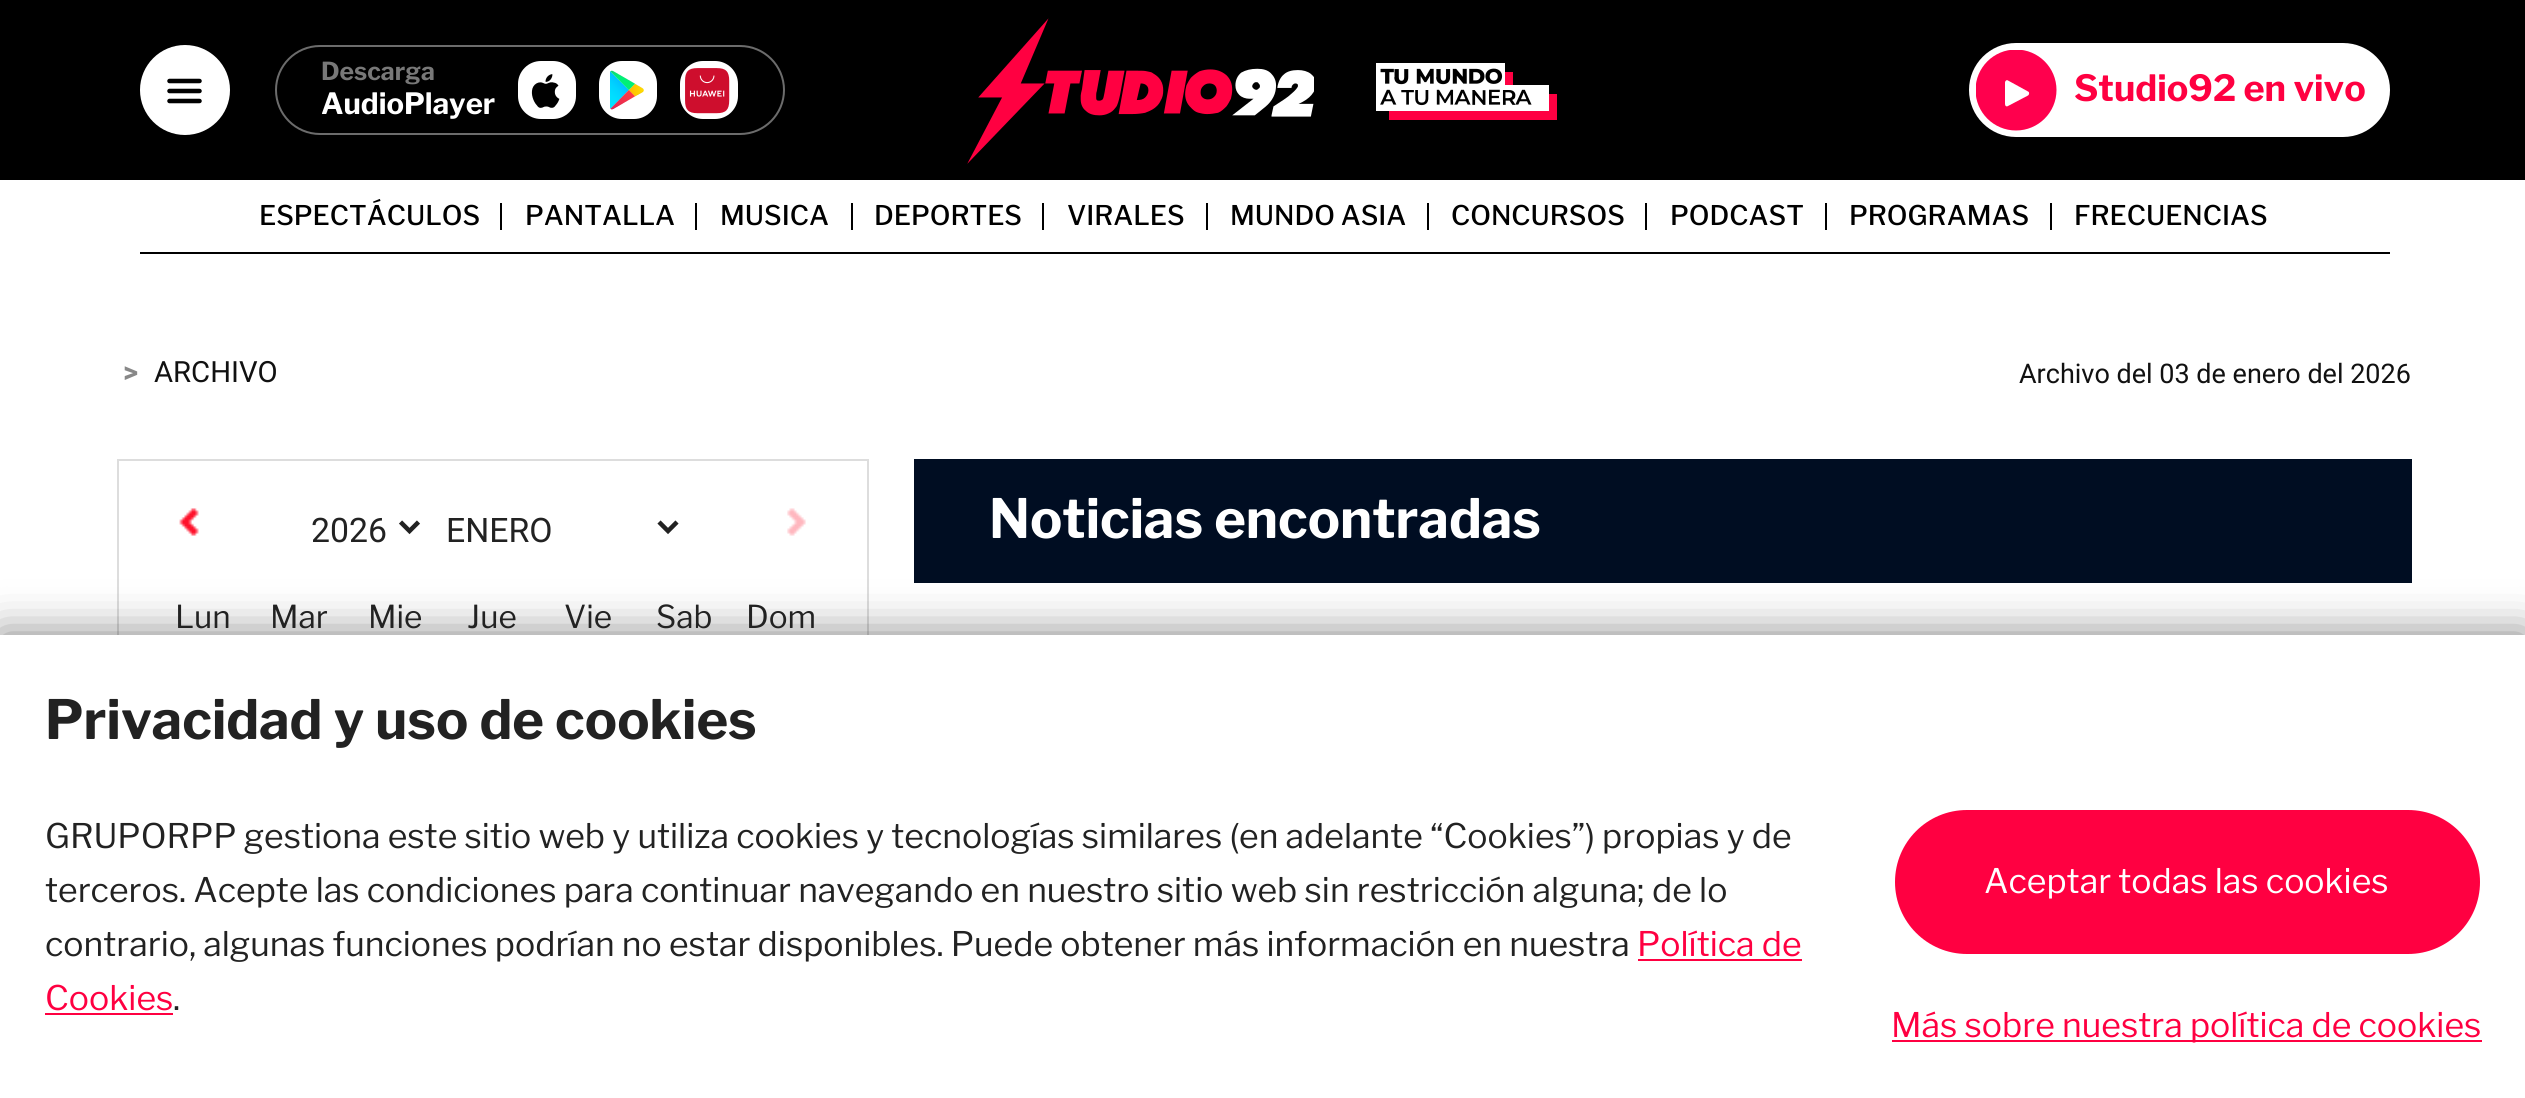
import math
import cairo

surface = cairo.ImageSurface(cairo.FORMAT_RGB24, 2525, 1098)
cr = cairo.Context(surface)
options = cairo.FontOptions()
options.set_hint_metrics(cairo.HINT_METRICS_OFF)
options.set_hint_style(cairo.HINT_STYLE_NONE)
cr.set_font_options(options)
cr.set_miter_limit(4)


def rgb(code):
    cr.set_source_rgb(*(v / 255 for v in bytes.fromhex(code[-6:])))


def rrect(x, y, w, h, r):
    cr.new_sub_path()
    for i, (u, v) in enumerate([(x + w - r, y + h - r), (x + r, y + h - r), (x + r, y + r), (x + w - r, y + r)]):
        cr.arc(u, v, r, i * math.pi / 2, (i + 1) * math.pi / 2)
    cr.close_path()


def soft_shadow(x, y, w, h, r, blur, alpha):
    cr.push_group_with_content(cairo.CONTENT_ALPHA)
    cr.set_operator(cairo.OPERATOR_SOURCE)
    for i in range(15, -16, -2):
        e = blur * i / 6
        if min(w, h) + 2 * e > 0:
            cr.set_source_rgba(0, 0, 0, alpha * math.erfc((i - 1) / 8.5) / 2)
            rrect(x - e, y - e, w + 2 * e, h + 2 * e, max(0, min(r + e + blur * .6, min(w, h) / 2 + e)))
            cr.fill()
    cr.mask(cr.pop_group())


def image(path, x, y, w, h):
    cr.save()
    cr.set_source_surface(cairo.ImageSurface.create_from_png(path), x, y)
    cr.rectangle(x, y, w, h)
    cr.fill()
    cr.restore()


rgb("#ffffff")
cr.paint()
rgb("#000000")
cr.rectangle(0, 0, 2525, 180)
cr.fill()
rgb("#ffffff")
cr.arc(185, 90, 45, 0, 2 * math.pi)
cr.fill()
cr.new_path()
cr.move_to(169.5, 91)
cr.line_to(199.5, 91)
cr.move_to(169.5, 81)
cr.line_to(199.5, 81)
cr.move_to(169.5, 101)
cr.line_to(199.5, 101)
rgb("#000000")
cr.set_line_width(4.5)
cr.set_line_cap(cairo.LINE_CAP_ROUND)
cr.set_line_join(cairo.LINE_JOIN_ROUND)
cr.stroke()
rrect(276, 46, 508, 88, 44)
rgb("#6c6c6c")
cr.set_line_width(2)
cr.set_line_cap(cairo.LINE_CAP_BUTT)
cr.set_line_join(cairo.LINE_JOIN_MITER)
cr.stroke()
rgb("#ffffff")
rrect(518, 61, 58, 58, 23)
cr.fill()
image("img/1.png", 531, 74, 29, 34)
rrect(599, 61, 58, 58, 23)
cr.fill()
image("img/2.png", 610, 70, 34, 40)
rrect(680, 61, 58, 58, 23)
cr.fill()
image("img/3.png", 685, 68, 45, 46)
image("img/4.png", 967, 18, 347, 146)
image("img/5.png", 1376, 63, 181, 57)
rrect(1969, 43, 421, 94, 47)
cr.fill()
cr.save()
cr.rectangle(1976, 50, 81, 81)
cr.clip()
rgb("#ff004d")
cr.arc(2016, 90, 40.5, 0, 2 * math.pi)
cr.fill()
cr.restore()
cr.set_fill_rule(cairo.FILL_RULE_EVEN_ODD)
cr.new_path()
cr.move_to(2005, 82.5)
cr.curve_to(2005, 81, 2006.5, 79.5, 2008, 80.5)
cr.line_to(2028, 91.5)
cr.curve_to(2029.5, 92, 2029.5, 94.5, 2028, 95.5)
cr.line_to(2008, 106)
cr.curve_to(2006.5, 107, 2005, 106, 2005, 104)
cr.close_path()
cr.fill()
for x, y, w, h, color in [
    (140, 252, 2250, 2, "#000000"),
    (500, 203, 2, 27, "#000000"),
    (695, 203, 2, 27, "#000000"),
    (851, 203, 2, 27, "#000000"),
    (1042, 203, 2, 27, "#000000"),
    (1206, 203, 2, 27, "#000000"),
    (1427, 203, 2, 27, "#000000"),
    (1645, 203, 2, 27, "#000000"),
    (1825, 203, 2, 27, "#000000"),
    (2050, 203, 2, 27, "#000000"),
]:
    rgb(color)
    cr.rectangle(x, y, w, h)
    cr.fill()
cr.rectangle(118, 460, 750, 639)
rgb("#dddddd")
cr.stroke()
image("img/6.png", 179, 508, 20, 28)
cr.new_path()
cr.move_to(400.5, 522)
cr.line_to(409.5, 531)
cr.line_to(418.5, 522)
rgb("#222222")
cr.set_line_width(4.5)
cr.stroke()
cr.new_path()
cr.move_to(659, 522)
cr.line_to(668, 531)
cr.line_to(677, 522)
cr.stroke()
image("img/7.png", 787, 508, 19, 28)
rgb("#000d22")
cr.rectangle(914, 459, 1498, 124)
cr.fill()
rgb("#000000")
soft_shadow(0, 635, 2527, 463, 0, 22.5, 0.5)
for x, y, w, h, color in [
    (0, 635, 2525, 463, "#ffffff"),
    (1638, 959, 164, 2, "#ff0041"),
    (45, 1013, 128, 2, "#ff0041"),
]:
    rgb(color)
    cr.rectangle(x, y, w, h)
    cr.fill()
rrect(1895, 810, 585, 144, 72)
cr.fill()
cr.rectangle(1892, 1040, 590, 2)
cr.fill()
cr.select_font_face("Libre Franklin", cairo.FONT_SLANT_NORMAL, cairo.FONT_WEIGHT_BOLD)
cr.set_font_size(24.75)
rgb("#787878")
cr.move_to(321, 80)
cr.show_text("Descarga")
cr.set_font_size(29.25)
rgb("#ffffff")
cr.move_to(321, 114)
cr.show_text("AudioPlayer")
cr.set_font_size(36)
rgb("#ff0041")
cr.move_to(2074, 101)
cr.show_text("Studio92 en vivo")
cr.select_font_face("Libre Franklin Medium")
cr.set_font_size(27)
rgb("#000000")
for x, y, s in [
    (259, 225, "ESPECTÁCULOS"),
    (525, 225, "PANTALLA"),
    (720, 225, "MUSICA"),
    (874, 225, "DEPORTES"),
    (1067, 225, "VIRALES"),
    (1230, 225, "MUNDO ASIA"),
    (1451, 225, "CONCURSOS"),
    (1670, 225, "PODCAST"),
    (1849, 225, "PROGRAMAS"),
    (2074, 225, "FRECUENCIAS"),
]:
    cr.move_to(x, y)
    cr.show_text(s)
cr.select_font_face("Roboto", cairo.FONT_SLANT_NORMAL, cairo.FONT_WEIGHT_BOLD)
cr.set_font_size(29.25)
rgb("#888888")
cr.move_to(123, 382)
cr.show_text(">")
cr.select_font_face("Roboto")
rgb("#111111")
cr.move_to(154, 382)
cr.show_text("ARCHIVO")
cr.set_font_size(27)
cr.move_to(2019, 383)
cr.show_text("Archivo del 03 de enero del 2026")
cr.set_font_size(33.75)
rgb("#222222")
cr.move_to(311, 542)
cr.show_text("2026")
cr.move_to(446, 542)
cr.show_text("ENERO")
cr.select_font_face("Libre Franklin")
cr.set_font_size(31.5)
for x, y, s in [
    (175, 628, "Lun"),
    (270, 628, "Mar"),
    (368, 628, "Mie"),
    (467, 628, "Jue"),
    (564, 628, "Vie"),
    (656, 628, "Sab"),
    (746, 628, "Dom"),
]:
    cr.move_to(x, y)
    cr.show_text(s)
cr.select_font_face("Libre Franklin", cairo.FONT_SLANT_NORMAL, cairo.FONT_WEIGHT_BOLD)
cr.set_font_size(54)
rgb("#ffffff")
cr.move_to(989, 538)
cr.show_text("Noticias encontradas")
rgb("#222222")
cr.move_to(45, 739)
cr.show_text("Privacidad y uso de cookies")
cr.select_font_face("Libre Franklin")
cr.set_font_size(33.75)
for x, y, s in [
    (45, 848, "GRUPORPP gestiona este sitio web y utiliza cookies y tecnologías similares (en adelante “Cookies”) propias y de"),
    (45, 902, "terceros. Acepte las condiciones para continuar navegando en nuestro sitio web sin restricción alguna; de lo"),
    (45, 956, "contrario, algunas funciones podrían no estar disponibles. Puede obtener más información en nuestra"),
]:
    cr.move_to(x, y)
    cr.show_text(s)
rgb("#ff0041")
cr.move_to(1637, 956)
cr.show_text("Política de")
cr.move_to(45, 1010)
cr.show_text("Cookies")
rgb("#222222")
cr.move_to(173, 1010)
cr.show_text(".")
rgb("#ffffff")
cr.move_to(1984, 893)
cr.show_text("Aceptar todas las cookies")
rgb("#ff0041")
cr.move_to(1891, 1037)
cr.show_text("Más sobre nuestra política de cookies")
surface.write_to_png("page.png")
